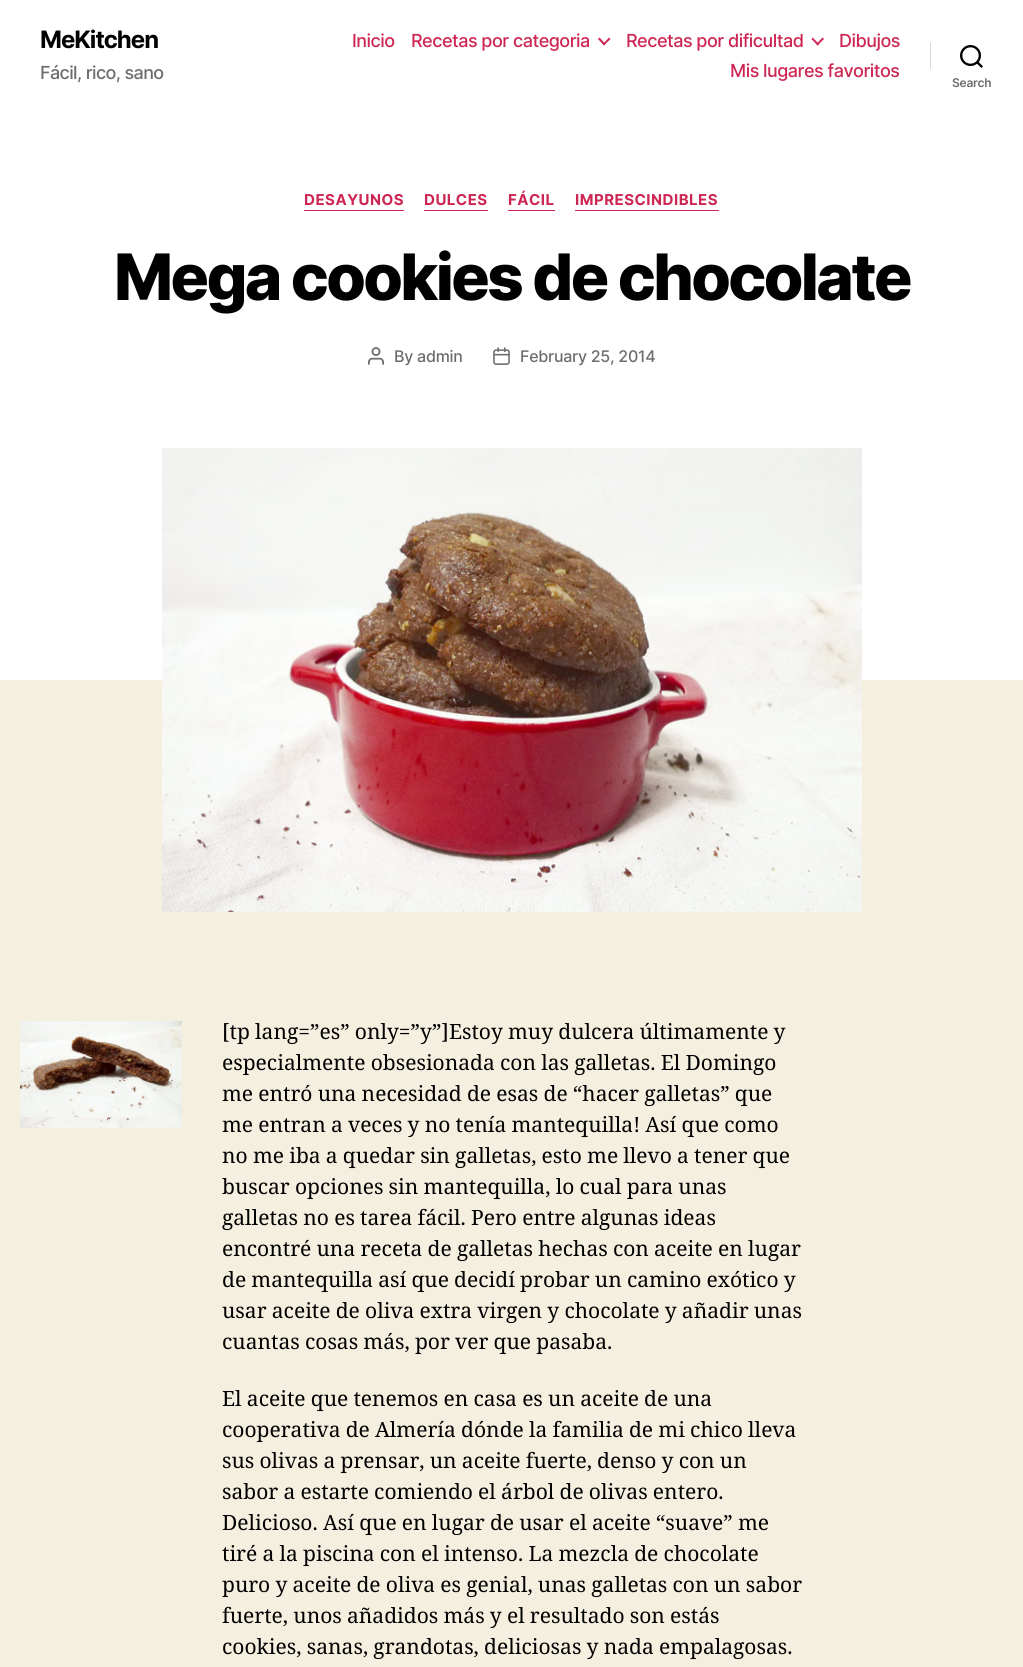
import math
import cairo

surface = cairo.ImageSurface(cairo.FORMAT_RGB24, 1023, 1667)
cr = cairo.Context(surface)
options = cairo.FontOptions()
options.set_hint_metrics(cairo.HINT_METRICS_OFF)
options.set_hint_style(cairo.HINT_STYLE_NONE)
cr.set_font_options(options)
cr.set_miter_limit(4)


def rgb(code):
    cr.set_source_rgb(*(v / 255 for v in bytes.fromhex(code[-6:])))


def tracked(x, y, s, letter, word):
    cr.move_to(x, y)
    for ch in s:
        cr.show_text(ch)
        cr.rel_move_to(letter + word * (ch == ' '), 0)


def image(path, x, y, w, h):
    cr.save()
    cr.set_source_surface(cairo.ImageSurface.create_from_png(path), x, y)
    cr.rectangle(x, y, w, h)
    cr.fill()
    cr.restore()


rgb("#f5efe0")
cr.paint()
rgb("#ffffff")
cr.rectangle(0, 0, 1023, 680)
cr.fill()
rgb("#cd2653")
cr.new_path()
cr.move_to(598, 39)
cr.line_to(599.5, 37.5)
cr.line_to(605.5, 44)
cr.line_to(604, 45.5)
cr.close_path()
cr.fill()
cr.new_path()
cr.move_to(603, 44)
cr.line_to(609, 37.5)
cr.line_to(610.5, 39)
cr.line_to(604, 45.5)
cr.close_path()
cr.fill()
cr.new_path()
cr.move_to(811.5, 39)
cr.line_to(812.5, 37.5)
cr.line_to(819, 44)
cr.line_to(817.5, 45.5)
cr.close_path()
cr.fill()
cr.new_path()
cr.move_to(816.5, 44)
cr.line_to(822.5, 37.5)
cr.line_to(824, 39)
cr.line_to(817.5, 45.5)
cr.close_path()
cr.fill()
rgb("#dcd7ca")
cr.rectangle(930, 42, 1, 27)
cr.fill()
image("img/1.png", 960, 45, 23, 23)
for x, y, w, h, color in [
    (304, 210, 100, 1, "#cd2653"),
    (424, 210, 64, 1, "#cd2653"),
    (508, 210, 47, 1, "#cd2653"),
    (575, 210, 144, 1, "#cd2653"),
]:
    rgb(color)
    cr.rectangle(x, y, w, h)
    cr.fill()
image("img/2.png", 368, 347, 16, 18)
image("img/3.png", 493, 347, 17, 18)
image("img/4.png", 162, 448, 700, 464)
image("img/5.png", 20, 1021, 162, 96)
image("img/6.png", 20, 1117, 162, 11)
cr.select_font_face("Inter", cairo.FONT_SLANT_NORMAL, cairo.FONT_WEIGHT_BOLD)
cr.set_font_size(24)
rgb("#000000")
tracked(40, 48, "MeKitchen", -1, 0)
cr.select_font_face("Inter Medium")
cr.set_font_size(18)
rgb("#6d6d6d")
tracked(40, 79, "Fácil, rico, sano", -0.6, 0)
rgb("#cd2653")
for x, y, s in [
    (352, 47, "Inicio"),
    (411, 47, "Recetas por categoria"),
    (626, 47, "Recetas por dificultad"),
    (839, 47, "Dibujos"),
    (730, 77, "Mis lugares favoritos"),
]:
    tracked(x, y, s, -0.5, 0)
cr.select_font_face("Inter SemiBold")
cr.set_font_size(12)
rgb("#6d6d6d")
tracked(952, 87, "Search", -0.25, 0)
cr.select_font_face("Inter", cairo.FONT_SLANT_NORMAL, cairo.FONT_WEIGHT_BOLD)
cr.set_font_size(15)
rgb("#cd2653")
for x, y, s in [
    (304, 205, "DESAYUNOS"),
    (424, 205, "DULCES"),
    (508, 205, "FÁCIL"),
    (575, 205, "IMPRESCINDIBLES"),
]:
    tracked(x, y, s, 0.5, 0)
cr.select_font_face("Inter ExtraBold")
cr.set_font_size(64)
rgb("#000000")
tracked(114, 300, "Mega cookies de chocolate", -2.65, 0)
cr.select_font_face("Inter Medium")
cr.set_font_size(16)
rgb("#6d6d6d")
tracked(394, 362, "By admin", -0.25, 0)
tracked(520, 362, "February 25, 2014", -0.25, 0)
cr.select_font_face("Noto Serif")
cr.set_font_size(21)
rgb("#000000")
for x, y, s in [
    (222, 1039, "[tp lang=”es” only=”y”]Estoy muy dulcera últimamente y"),
    (222, 1070, "especialmente obsesionada con las galletas. El Domingo"),
    (222, 1101, "me entró una necesidad de esas de “hacer galletas” que"),
    (222, 1132, "me entran a veces y no tenía mantequilla! Así que como"),
    (222, 1163, "no me iba a quedar sin galletas, esto me llevo a tener que"),
    (222, 1194, "buscar opciones sin mantequilla, lo cual para unas"),
    (222, 1225, "galletas no es tarea fácil. Pero entre algunas ideas"),
    (222, 1256, "encontré una receta de galletas hechas con aceite en lugar"),
    (222, 1287, "de mantequilla así que decidí probar un camino exótico y"),
    (222, 1318, "usar aceite de oliva extra virgen y chocolate y añadir unas"),
    (222, 1349, "cuantas cosas más, por ver que pasaba."),
    (222, 1406, "El aceite que tenemos en casa es un aceite de una"),
    (222, 1437, "cooperativa de Almería dónde la familia de mi chico lleva"),
    (222, 1468, "sus olivas a prensar, un aceite fuerte, denso y con un"),
    (222, 1499, "sabor a estarte comiendo el árbol de olivas entero."),
    (222, 1530, "Delicioso. Así que en lugar de usar el aceite “suave” me"),
    (222, 1561, "tiré a la piscina con el intenso. La mezcla de chocolate"),
    (222, 1592, "puro y aceite de oliva es genial, unas galletas con un sabor"),
    (222, 1623, "fuerte, unos añadidos más y el resultado son estás"),
    (222, 1654, "cookies, sanas, grandotas, deliciosas y nada empalagosas."),
]:
    tracked(x, y, s, 0, -0.25)
surface.write_to_png("page.png")
